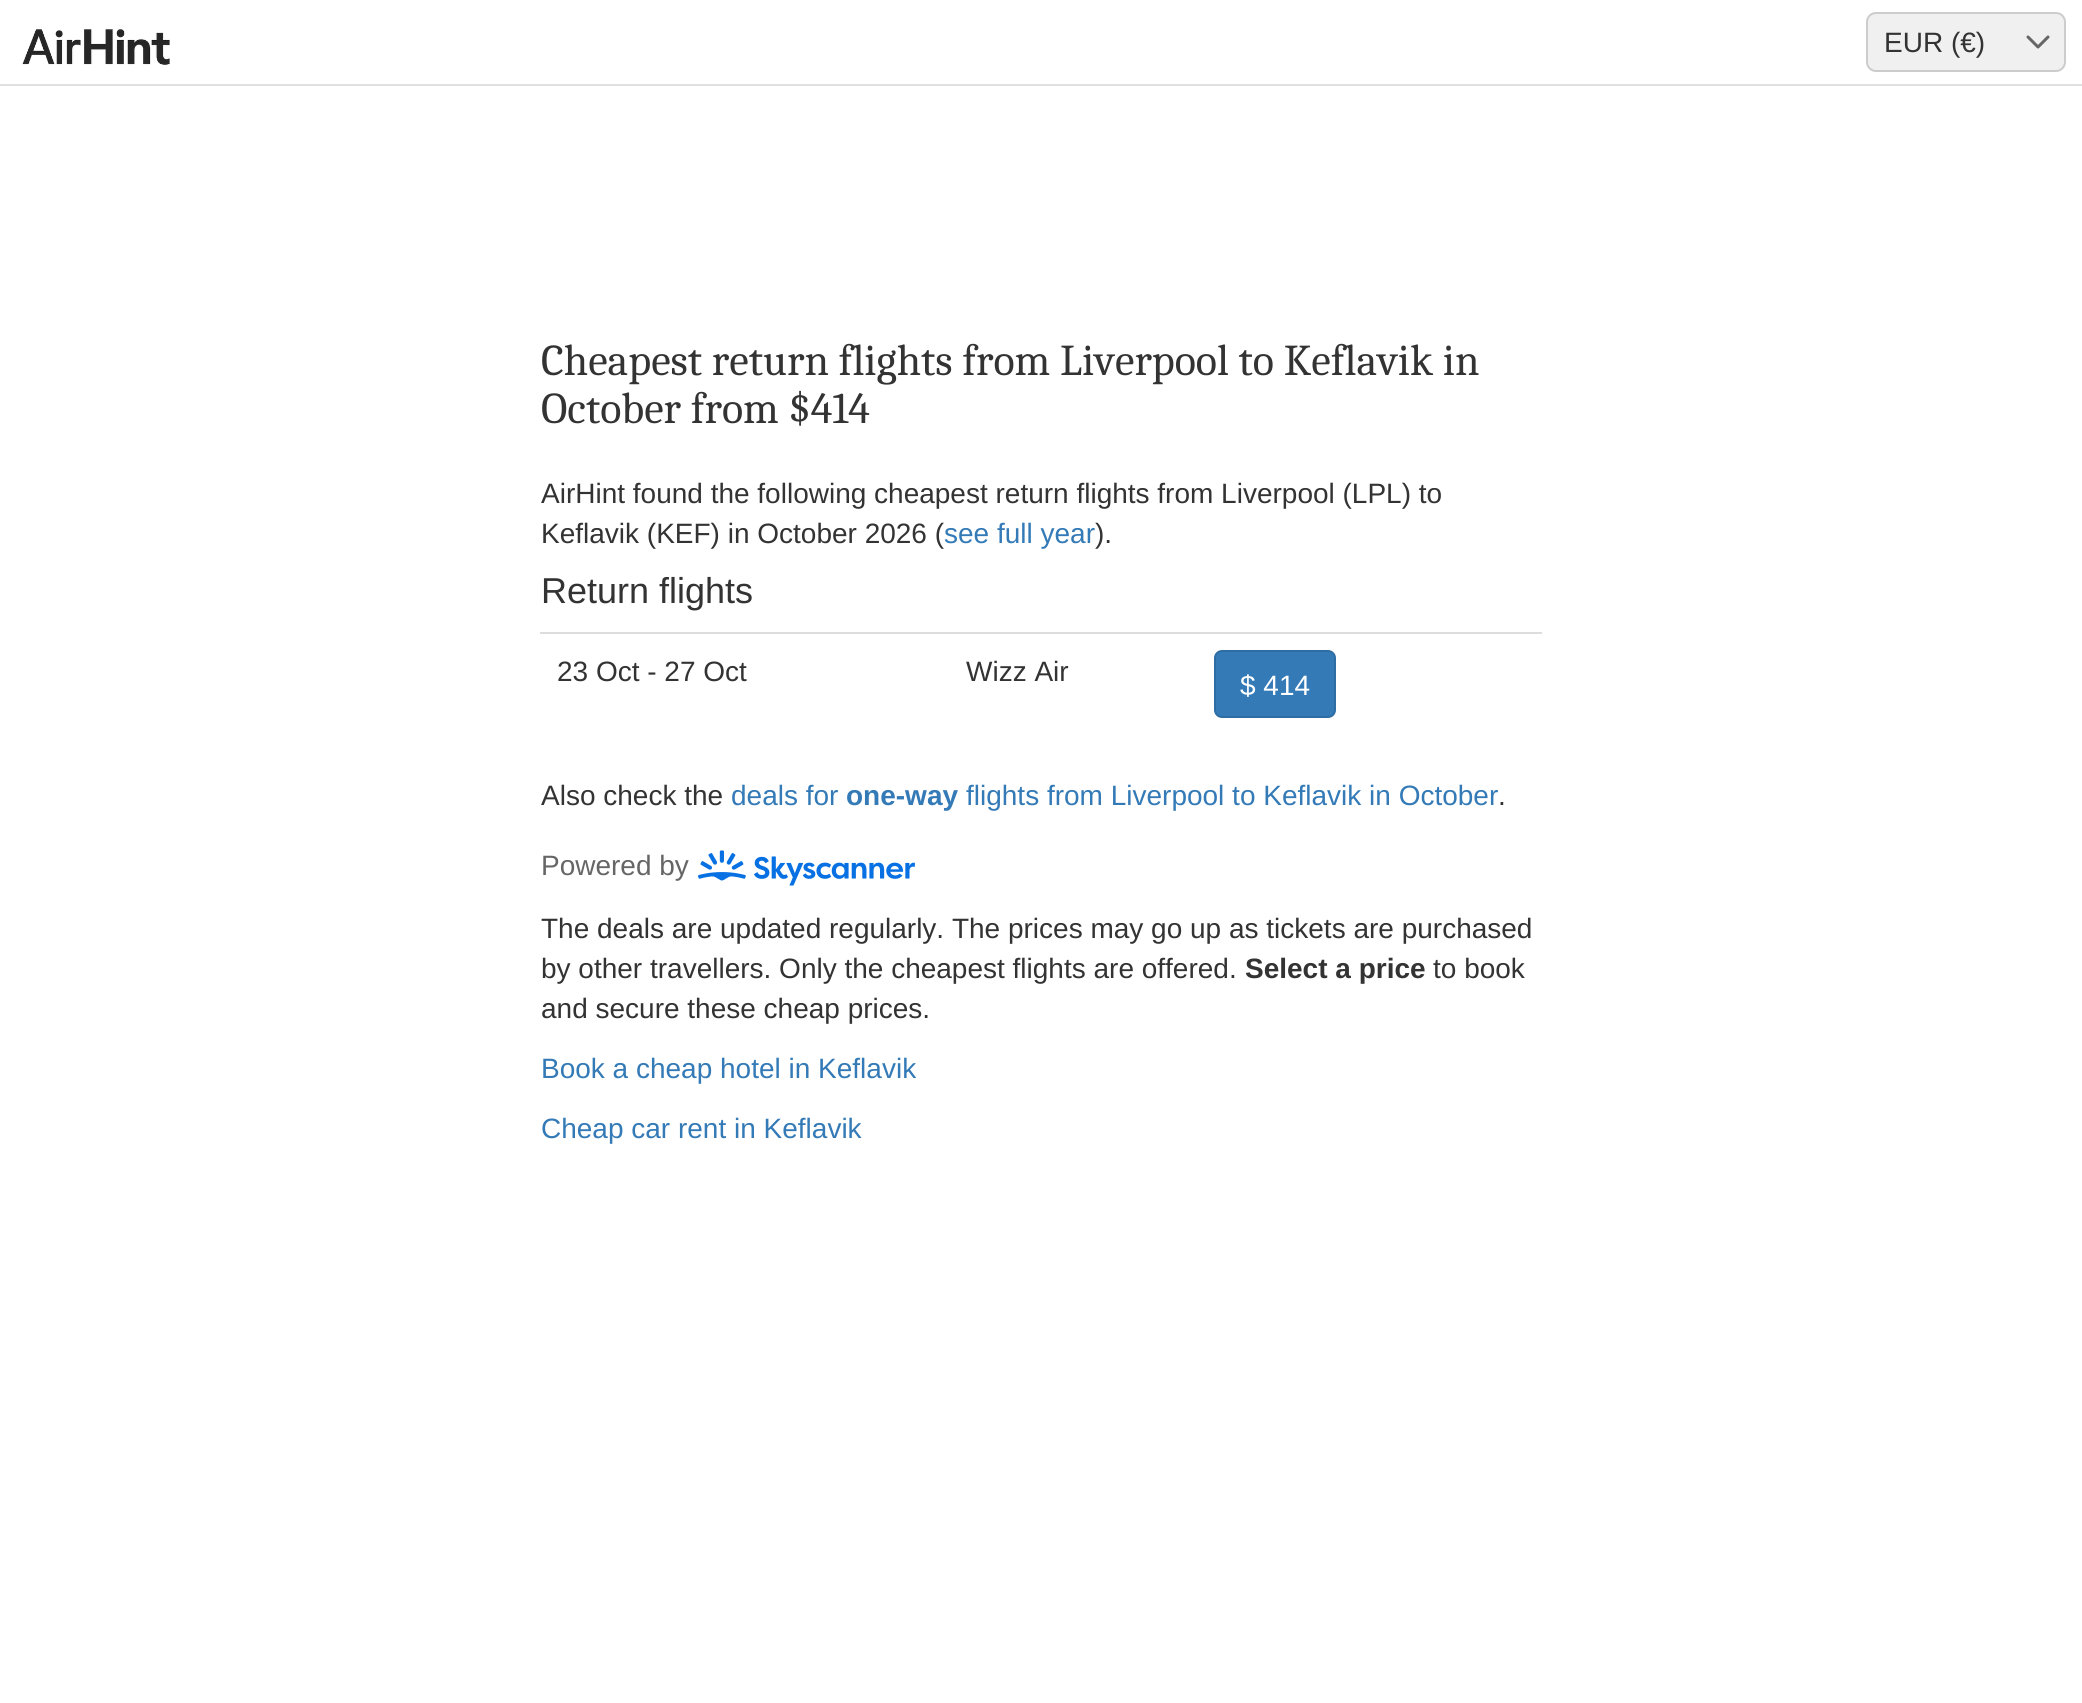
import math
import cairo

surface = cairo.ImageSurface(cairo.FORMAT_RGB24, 2082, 1703)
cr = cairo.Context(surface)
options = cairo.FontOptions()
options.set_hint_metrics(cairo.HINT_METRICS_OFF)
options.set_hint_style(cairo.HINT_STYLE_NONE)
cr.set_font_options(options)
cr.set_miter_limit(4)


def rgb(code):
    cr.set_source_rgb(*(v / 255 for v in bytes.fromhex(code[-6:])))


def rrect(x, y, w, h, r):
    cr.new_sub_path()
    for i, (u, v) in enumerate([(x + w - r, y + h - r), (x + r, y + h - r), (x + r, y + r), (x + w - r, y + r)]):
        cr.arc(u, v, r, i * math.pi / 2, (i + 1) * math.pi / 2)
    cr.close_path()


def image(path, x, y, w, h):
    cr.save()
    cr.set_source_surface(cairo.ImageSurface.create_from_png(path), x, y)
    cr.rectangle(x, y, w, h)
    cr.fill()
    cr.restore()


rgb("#ffffff")
cr.paint()
rgb("#e0e0e0")
cr.rectangle(0, 84, 2082, 2)
cr.fill()
image("img/1.png", 22, 29, 148, 36)
rgb("#f0f0f0")
rrect(1867, 13, 198, 58, 9)
cr.fill_preserve()
rgb("#cccccc")
cr.stroke()
cr.new_path()
cr.move_to(2028, 37)
cr.line_to(2038, 47)
cr.line_to(2048, 37)
rgb("#666666")
cr.set_line_width(3)
cr.set_line_cap(cairo.LINE_CAP_ROUND)
cr.set_line_join(cairo.LINE_JOIN_ROUND)
cr.stroke()
rgb("#dddddd")
cr.rectangle(540, 632, 1002, 2)
cr.fill()
rgb("#337ab7")
rrect(1215, 651, 120, 66, 7)
cr.fill_preserve()
rgb("#2e6da4")
cr.set_line_width(2)
cr.set_line_cap(cairo.LINE_CAP_BUTT)
cr.set_line_join(cairo.LINE_JOIN_MITER)
cr.stroke()
image("img/2.png", 698, 850, 217, 36)
cr.select_font_face("Liberation Sans")
cr.set_font_size(28)
rgb("#333333")
cr.move_to(1884, 52)
cr.show_text("EUR (€)")
cr.select_font_face("Caladea")
cr.set_font_size(44)
cr.move_to(541, 375)
cr.show_text("Cheapest return flights from Liverpool to Keflavik in")
cr.move_to(541, 423)
cr.show_text("October from $414")
cr.select_font_face("Liberation Sans")
cr.set_font_size(28)
cr.move_to(541, 503)
cr.show_text("AirHint found the following cheapest return flights from Liverpool (LPL) to")
cr.move_to(541, 543)
cr.show_text("Keflavik (KEF) in October 2026 (")
rgb("#337ab7")
cr.move_to(944, 543)
cr.show_text("see full year")
rgb("#333333")
cr.move_to(1095, 543)
cr.show_text(").")
cr.set_font_size(36)
cr.move_to(541, 603)
cr.show_text("Return flights")
cr.set_font_size(28)
cr.move_to(557, 681)
cr.show_text("23 Oct - 27 Oct")
cr.move_to(966, 681)
cr.show_text("Wizz Air")
rgb("#ffffff")
cr.move_to(1240, 695)
cr.show_text("$ 414")
rgb("#333333")
cr.move_to(541, 805)
cr.show_text("Also check the")
rgb("#337ab7")
cr.move_to(731, 805)
cr.show_text("deals for")
cr.select_font_face("Liberation Sans", cairo.FONT_SLANT_NORMAL, cairo.FONT_WEIGHT_BOLD)
cr.move_to(846, 805)
cr.show_text("one-way")
cr.select_font_face("Liberation Sans")
cr.move_to(966, 805)
cr.show_text("flights from Liverpool to Keflavik in October")
rgb("#333333")
cr.move_to(1498, 805)
cr.show_text(".")
rgb("#666666")
cr.move_to(541, 875)
cr.show_text("Powered by")
rgb("#333333")
cr.move_to(541, 938)
cr.show_text("The deals are updated regularly. The prices may go up as tickets are purchased")
cr.move_to(541, 978)
cr.show_text("by other travellers. Only the cheapest flights are offered.")
cr.select_font_face("Liberation Sans", cairo.FONT_SLANT_NORMAL, cairo.FONT_WEIGHT_BOLD)
cr.move_to(1245, 978)
cr.show_text("Select a price")
cr.select_font_face("Liberation Sans")
cr.move_to(1433, 978)
cr.show_text("to book")
cr.move_to(541, 1018)
cr.show_text("and secure these cheap prices.")
rgb("#337ab7")
cr.move_to(541, 1078)
cr.show_text("Book a cheap hotel in Keflavik")
cr.move_to(541, 1138)
cr.show_text("Cheap car rent in Keflavik")
surface.write_to_png("page.png")
